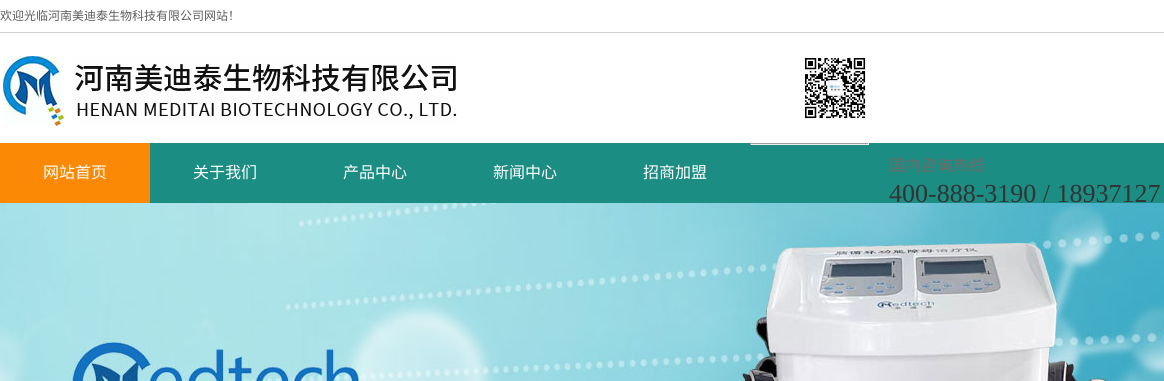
import math
import cairo

surface = cairo.ImageSurface(cairo.FORMAT_RGB24, 1164, 381)
cr = cairo.Context(surface)
options = cairo.FontOptions()
options.set_hint_metrics(cairo.HINT_METRICS_OFF)
options.set_hint_style(cairo.HINT_STYLE_NONE)
cr.set_font_options(options)
cr.set_miter_limit(4)


def rgb(code):
    cr.set_source_rgb(*(v / 255 for v in bytes.fromhex(code[-6:])))


def image(path, x, y, w, h):
    cr.save()
    cr.set_source_surface(cairo.ImageSurface.create_from_png(path), x, y)
    cr.rectangle(x, y, w, h)
    cr.fill()
    cr.restore()


rgb("#ffffff")
cr.paint()
for x, y, w, h, color in [
    (150, 143, 1014, 60, "#1b8d83"),
    (750, 143, 119, 1, "#9f9f9f"),
    (868, 143, 1, 2, "#eeeeee"),
    (750, 144, 119, 1, "#eeeeee"),
    (750, 143, 1, 2, "#9f9f9f"),
    (0, 143, 150, 60, "#fb8905"),
    (0, 32, 1164, 1, "#d0d0d0"),
]:
    rgb(color)
    cr.rectangle(x, y, w, h)
    cr.fill()
image("img/1.png", 3, 56, 454, 70)
image("img/2.png", 805, 58, 61, 61)
image("img/3.png", 0, 203, 1164, 178)
cr.select_font_face("Noto Sans CJK SC")
cr.set_font_size(12)
rgb("#5c5c5c")
cr.move_to(0, 20)
cr.show_text("欢迎光临河南美迪泰生物科技有限公司网站！")
cr.set_font_size(16)
rgb("#ffffff")
for x, y, s in [
    (43, 178, "网站首页"),
    (193, 178, "关于我们"),
    (343, 178, "产品中心"),
    (493, 178, "新闻中心"),
    (643, 178, "招商加盟"),
]:
    cr.move_to(x, y)
    cr.show_text(s)
rgb("#6c6c6a")
cr.move_to(889, 171)
cr.show_text("国内咨询热线")
cr.select_font_face("Liberation Serif")
cr.set_font_size(26)
rgb("#333333")
cr.move_to(889, 202)
cr.show_text("400-888-3190 / 18937127")
surface.write_to_png("page.png")
